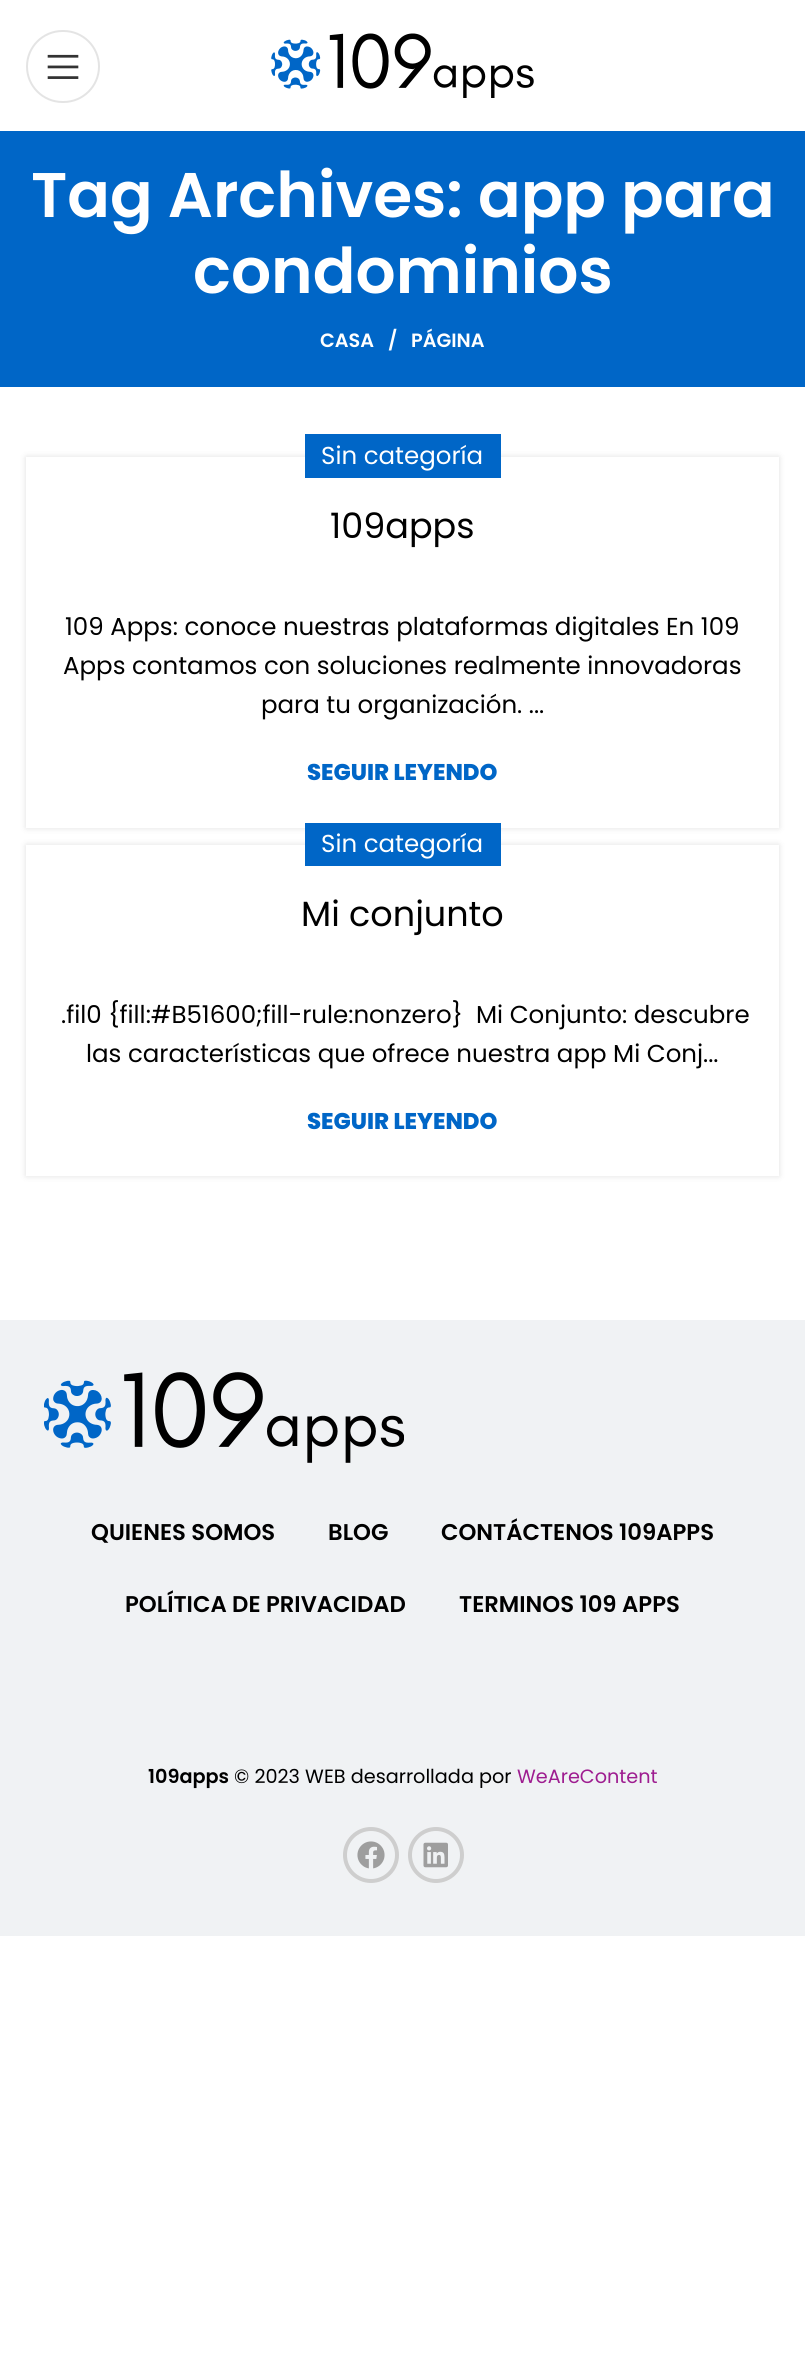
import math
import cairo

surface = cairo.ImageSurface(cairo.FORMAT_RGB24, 805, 2375)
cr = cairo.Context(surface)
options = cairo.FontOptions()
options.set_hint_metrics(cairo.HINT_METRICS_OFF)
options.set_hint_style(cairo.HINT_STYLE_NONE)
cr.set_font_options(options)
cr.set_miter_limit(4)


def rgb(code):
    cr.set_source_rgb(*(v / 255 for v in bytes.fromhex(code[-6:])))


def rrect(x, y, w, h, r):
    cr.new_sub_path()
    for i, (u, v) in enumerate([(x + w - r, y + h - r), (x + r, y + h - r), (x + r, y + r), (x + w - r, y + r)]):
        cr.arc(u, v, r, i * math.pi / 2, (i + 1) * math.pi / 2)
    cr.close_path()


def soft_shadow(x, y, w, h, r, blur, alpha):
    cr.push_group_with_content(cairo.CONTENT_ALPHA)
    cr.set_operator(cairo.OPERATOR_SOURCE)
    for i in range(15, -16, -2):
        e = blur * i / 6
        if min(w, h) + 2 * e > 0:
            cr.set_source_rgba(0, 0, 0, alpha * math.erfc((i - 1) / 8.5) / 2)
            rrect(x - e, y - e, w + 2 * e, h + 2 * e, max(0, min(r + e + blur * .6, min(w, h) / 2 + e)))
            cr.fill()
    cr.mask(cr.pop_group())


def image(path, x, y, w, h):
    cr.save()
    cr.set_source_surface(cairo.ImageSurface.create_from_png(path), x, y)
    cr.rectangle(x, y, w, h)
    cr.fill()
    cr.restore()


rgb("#ffffff")
cr.paint()
rrect(27, 31, 72, 71, 35.5)
rgb("#e4e4e4")
cr.stroke()
image("img/1.png", 47, 54, 32, 25)
image("img/2.png", 271, 33, 263, 65)
rgb("#0066c7")
cr.rectangle(0, 131, 805, 256)
cr.fill()
rgb("#000000")
soft_shadow(26, 457, 753, 371, 0, 3.5, 0.12)
rgb("#ffffff")
cr.rectangle(26, 457, 753, 371)
cr.fill()
rgb("#0066c7")
cr.rectangle(305, 434, 196, 44)
cr.fill()
rgb("#000000")
soft_shadow(26, 845, 753, 331, 0, 3.5, 0.12)
for x, y, w, h, color in [
    (26, 845, 753, 331, "#ffffff"),
    (305, 823, 196, 43, "#0066c7"),
    (0, 1320, 805, 616, "#f0f2f4"),
]:
    rgb(color)
    cr.rectangle(x, y, w, h)
    cr.fill()
image("img/3.png", 44, 1372, 360, 91)
cr.arc(371, 1855, 26, 0, 2 * math.pi)
rgb("#cecece")
cr.set_line_width(4)
cr.stroke()
image("img/4.png", 357, 1841, 28, 28)
cr.arc(436, 1855, 26, 0, 2 * math.pi)
cr.stroke()
image("img/5.png", 423, 1842, 25, 26)
cr.select_font_face("Poppins SemiBold")
cr.set_font_size(63)
rgb("#ffffff")
cr.move_to(31, 217)
cr.show_text("Tag Archives: app para")
cr.move_to(193, 293)
cr.show_text("condominios")
cr.set_font_size(19.25)
for x, y, s in [
    (320, 347, "CASA"),
    (388, 347, "/"),
    (411, 347, "PÁGINA"),
]:
    cr.move_to(x, y)
    cr.show_text(s)
cr.select_font_face("Poppins")
cr.set_font_size(24.5)
cr.move_to(321, 464)
cr.show_text("Sin categoría")
cr.set_font_size(35)
rgb("#000000")
cr.move_to(330, 538)
cr.show_text("109apps")
cr.set_font_size(24.5)
for x, y, s in [
    (65, 635, "109 Apps: conoce nuestras plataformas digitales En 109"),
    (63, 674, "Apps contamos con soluciones realmente innovadoras"),
    (261, 713, "para tu organización. ..."),
]:
    cr.move_to(x, y)
    cr.show_text(s)
cr.select_font_face("Poppins ExtraBold")
cr.set_font_size(22.75)
rgb("#0066c7")
cr.move_to(307, 780)
cr.show_text("SEGUIR LEYENDO")
cr.select_font_face("Poppins")
cr.set_font_size(24.5)
rgb("#ffffff")
cr.move_to(321, 852)
cr.show_text("Sin categoría")
cr.set_font_size(35)
rgb("#000000")
cr.move_to(301, 926)
cr.show_text("Mi conjunto")
cr.set_font_size(24.5)
cr.move_to(61, 1023)
cr.show_text(".fil0 {fill:#B51600;fill-rule:nonzero}  Mi Conjunto: descubre")
cr.move_to(86, 1062)
cr.show_text("las características que ofrece nuestra app Mi Conj...")
cr.select_font_face("Poppins ExtraBold")
cr.set_font_size(22.75)
rgb("#0066c7")
cr.move_to(307, 1129)
cr.show_text("SEGUIR LEYENDO")
cr.select_font_face("Poppins SemiBold")
rgb("#000000")
for x, y, s in [
    (91, 1540, "QUIENES SOMOS"),
    (328, 1540, "BLOG"),
    (441, 1540, "CONTÁCTENOS 109APPS"),
    (125, 1612, "POLÍTICA DE PRIVACIDAD"),
    (459, 1612, "TERMINOS 109 APPS"),
]:
    cr.move_to(x, y)
    cr.show_text(s)
cr.set_font_size(19.25)
cr.move_to(148, 1783)
cr.show_text("109apps")
cr.select_font_face("Poppins")
cr.move_to(234, 1783)
cr.show_text("© 2023 WEB desarrollada por")
rgb("#9e1d90")
cr.move_to(517, 1783)
cr.show_text("WeAreContent")
surface.write_to_png("page.png")
